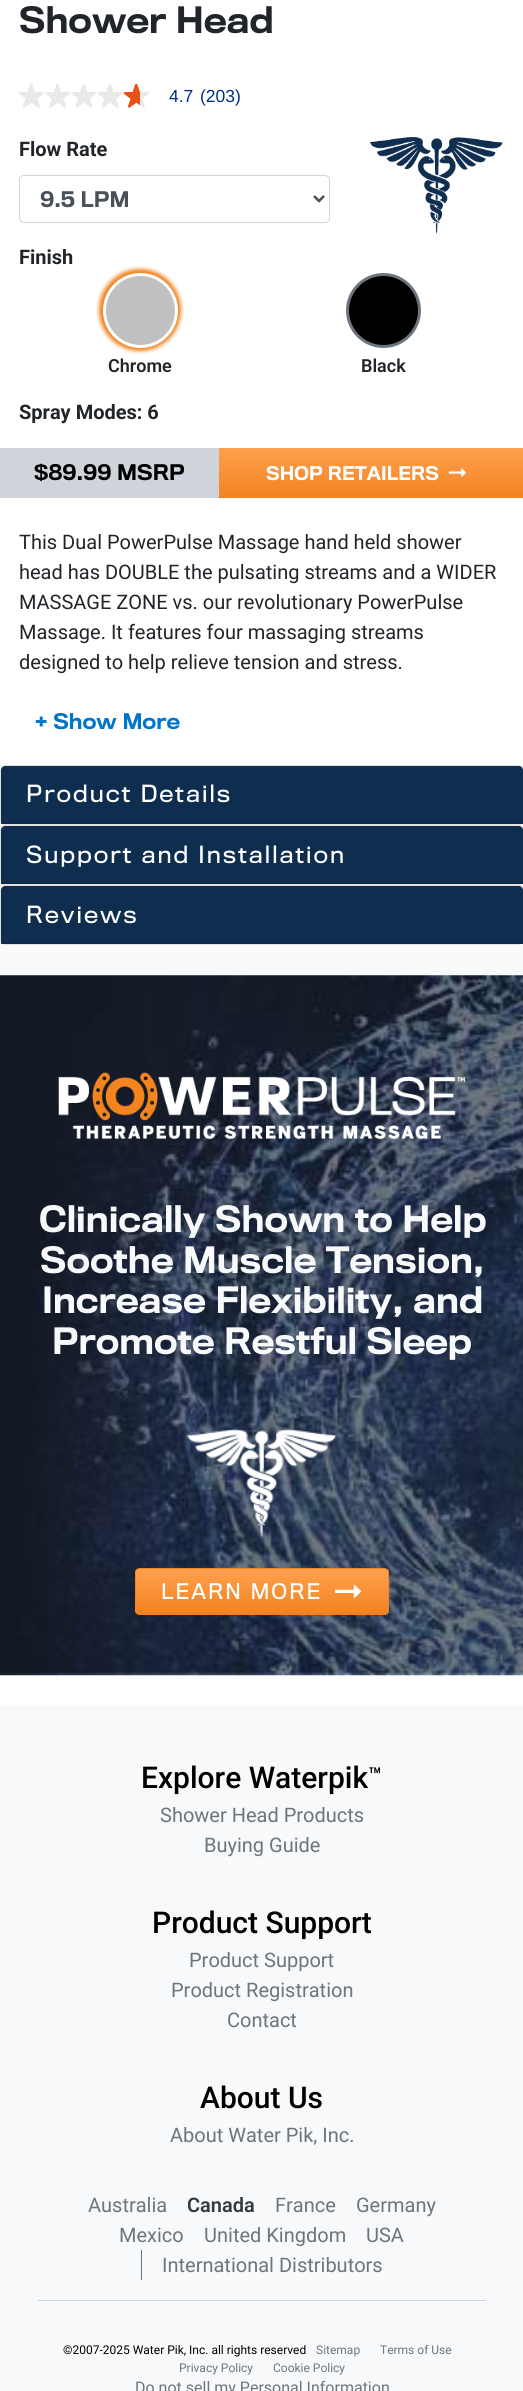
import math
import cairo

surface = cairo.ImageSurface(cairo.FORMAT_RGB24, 523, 2391)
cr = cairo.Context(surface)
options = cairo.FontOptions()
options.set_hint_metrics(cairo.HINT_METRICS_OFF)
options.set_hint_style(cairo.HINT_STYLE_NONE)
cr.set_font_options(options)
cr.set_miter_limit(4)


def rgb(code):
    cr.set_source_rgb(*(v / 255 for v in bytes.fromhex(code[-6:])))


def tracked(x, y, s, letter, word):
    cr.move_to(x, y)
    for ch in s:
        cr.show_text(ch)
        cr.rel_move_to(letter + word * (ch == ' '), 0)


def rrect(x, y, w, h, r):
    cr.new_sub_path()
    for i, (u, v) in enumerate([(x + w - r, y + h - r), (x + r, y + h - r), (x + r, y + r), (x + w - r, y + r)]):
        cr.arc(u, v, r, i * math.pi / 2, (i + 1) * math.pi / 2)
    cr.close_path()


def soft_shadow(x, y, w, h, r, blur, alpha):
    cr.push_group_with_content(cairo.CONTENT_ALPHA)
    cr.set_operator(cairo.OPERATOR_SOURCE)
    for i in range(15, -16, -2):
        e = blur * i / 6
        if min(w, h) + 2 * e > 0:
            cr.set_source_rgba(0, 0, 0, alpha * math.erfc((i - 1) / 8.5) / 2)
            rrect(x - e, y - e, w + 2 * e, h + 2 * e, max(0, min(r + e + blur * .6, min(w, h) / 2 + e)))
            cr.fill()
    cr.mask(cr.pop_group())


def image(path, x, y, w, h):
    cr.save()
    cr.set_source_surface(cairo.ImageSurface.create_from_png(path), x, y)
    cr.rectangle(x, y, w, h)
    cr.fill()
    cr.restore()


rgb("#ffffff")
cr.paint()
image("img/1.png", 19, 84, 25, 24)
image("img/2.png", 45, 84, 25, 24)
image("img/3.png", 71, 84, 25, 24)
image("img/4.png", 97, 84, 26, 24)
image("img/5.png", 123, 84, 26, 24)
rrect(19.5, 175.5, 310, 47, 4.5)
rgb("#ced4da")
cr.set_line_width(1)
cr.stroke()
cr.new_path()
cr.move_to(314, 196)
cr.line_to(319, 201)
cr.line_to(324, 196)
rgb("#495057")
cr.set_line_width(2.5)
cr.stroke()
image("img/6.png", 370, 137, 133, 97)
rgb("#f28321")
soft_shadow(99, 269, 82, 82, 41, 2, 1)
rgb("#c0c0c0")
cr.arc(140.5, 310.5, 36, 0, 2 * math.pi)
cr.fill_preserve()
rgb("#ffffff")
cr.set_line_width(3)
cr.stroke()
rgb("#000000")
cr.arc(383.5, 310.5, 36, 0, 2 * math.pi)
cr.fill_preserve()
rgb("#6c757d")
cr.stroke()
rgb("#ced4da")
cr.rectangle(0, 448, 219, 50)
cr.fill()
gradient = cairo.LinearGradient(371, 448, 371, 498)
gradient.add_color_stop_rgba(0, 1, 0.627, 0.302, 1)
gradient.add_color_stop_rgba(1, 0.949, 0.514, 0.129, 1)
cr.set_source(gradient)
cr.rectangle(219, 448, 304, 50)
cr.fill()
image("img/7.png", 448, 468, 18, 9)
rgb("#f8f9fa")
cr.rectangle(0, 765, 523, 210)
cr.fill()
rgb("#ffffff")
rrect(0, 765, 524, 60, 5)
cr.fill()
rrect(0.5, 765.5, 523, 59, 4.5)
cr.set_source_rgba(0, 0, 0, 0.12)
cr.set_line_width(1)
cr.stroke()
rgb("#0f2e4f")
cr.new_path()
cr.move_to(5, 766)
cr.line_to(519, 766)
cr.curve_to(521, 766, 523, 768, 523, 770)
cr.line_to(523, 824)
cr.line_to(1, 824)
cr.line_to(1, 770)
cr.curve_to(1, 768, 3, 766, 5, 766)
cr.close_path()
cr.fill()
rgb("#0d2845")
cr.rectangle(1, 823, 522, 1)
cr.fill()
rgb("#ffffff")
rrect(0, 825, 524, 60, 5)
cr.fill()
rrect(0.5, 825.5, 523, 59, 4.5)
cr.set_source_rgba(0, 0, 0, 0.12)
cr.stroke()
rgb("#0f2e4f")
cr.new_path()
cr.move_to(5, 826)
cr.line_to(519, 826)
cr.curve_to(521, 826, 523, 828, 523, 830)
cr.line_to(523, 884)
cr.line_to(1, 884)
cr.line_to(1, 830)
cr.curve_to(1, 828, 3, 826, 5, 826)
cr.close_path()
cr.fill()
rgb("#0d2845")
cr.rectangle(1, 883, 522, 1)
cr.fill()
rgb("#ffffff")
rrect(0, 885, 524, 60, 5)
cr.fill()
rrect(0.5, 885.5, 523, 59, 4.5)
cr.set_source_rgba(0, 0, 0, 0.12)
cr.stroke()
rgb("#0f2e4f")
cr.new_path()
cr.move_to(5, 886)
cr.line_to(519, 886)
cr.curve_to(521, 886, 523, 888, 523, 890)
cr.line_to(523, 944)
cr.line_to(1, 944)
cr.line_to(1, 890)
cr.curve_to(1, 888, 3, 886, 5, 886)
cr.close_path()
cr.fill()
rgb("#0d2845")
cr.rectangle(1, 943, 522, 1)
cr.fill()
image("img/8.png", 0, 975, 523, 701)
image("img/9.png", 58, 1072, 407, 67)
image("img/10.png", 187, 1429, 150, 108)
cr.save()
rrect(135, 1568, 254, 47, 5)
cr.clip()
gradient = cairo.LinearGradient(262, 1569, 262, 1614)
gradient.add_color_stop_rgba(0, 1, 0.627, 0.302, 1)
gradient.add_color_stop_rgba(1, 0.949, 0.514, 0.129, 1)
cr.set_source(gradient)
cr.rectangle(135, 1569, 254, 45)
cr.fill()
cr.restore()
rrect(135.5, 1568.5, 253, 46, 4.5)
rgb("#f28321")
cr.stroke()
image("img/11.png", 335, 1584, 26, 14)
for x, y, w, h, color in [
    (0, 1705, 523, 686, "#f8f9fa"),
    (38, 2300, 448, 1, "#ced4da"),
    (141, 2250, 1, 30, "#6c757d"),
]:
    rgb(color)
    cr.rectangle(x, y, w, h)
    cr.fill()
cr.select_font_face("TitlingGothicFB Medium")
cr.set_font_size(33.75)
rgb("#212529")
cr.move_to(19, 33)
cr.show_text("Shower Head")
cr.select_font_face("Liberation Sans")
cr.set_font_size(17.5)
rgb("#002f87")
cr.move_to(169, 102)
cr.show_text("4.7")
cr.move_to(200, 102)
cr.show_text("(203)")
cr.select_font_face("Roboto", cairo.FONT_SLANT_NORMAL, cairo.FONT_WEIGHT_BOLD)
cr.set_font_size(20)
rgb("#212529")
cr.move_to(19, 156)
cr.show_text("Flow Rate")
cr.select_font_face("TitlingGothicFB Medium")
rgb("#495057")
cr.move_to(40, 207)
cr.show_text("9.5 LPM")
cr.select_font_face("Roboto", cairo.FONT_SLANT_NORMAL, cairo.FONT_WEIGHT_BOLD)
rgb("#212529")
cr.move_to(19, 264)
cr.show_text("Finish")
cr.select_font_face("Roboto SemiBold")
cr.set_font_size(18)
cr.move_to(108, 372)
cr.show_text("Chrome")
cr.move_to(361, 372)
cr.show_text("Black")
cr.select_font_face("Roboto", cairo.FONT_SLANT_NORMAL, cairo.FONT_WEIGHT_BOLD)
cr.set_font_size(20)
cr.move_to(19, 419)
cr.show_text("Spray Modes: 6")
cr.select_font_face("TitlingGothicFB Medium")
rgb("#000000")
cr.move_to(34, 480)
cr.show_text("$89.99 MSRP")
cr.set_font_size(17.5)
rgb("#ffffff")
cr.move_to(266, 480)
cr.show_text("SHOP RETAILERS")
cr.select_font_face("Roboto")
cr.set_font_size(20)
rgb("#212529")
for x, y, s in [
    (19, 549, "This Dual PowerPulse Massage hand held shower"),
    (19, 579, "head has DOUBLE the pulsating streams and a WIDER"),
    (19, 609, "MASSAGE ZONE vs. our revolutionary PowerPulse"),
    (19, 639, "Massage. It features four massaging streams"),
    (19, 669, "designed to help relieve tension and stress."),
]:
    cr.move_to(x, y)
    cr.show_text(s)
cr.select_font_face("TitlingGothicFB Medium")
rgb("#0075c9")
cr.move_to(35, 729)
cr.show_text("+ Show More")
cr.select_font_face("TitlingGothicFB")
cr.set_font_size(22)
rgb("#ffffff")
for x, y, s in [
    (26, 802, "Product Details"),
    (26, 863, "Support and Installation"),
    (26, 923, "Reviews"),
]:
    tracked(x, y, s, 2, 0)
cr.select_font_face("TitlingGothicFB Medium")
cr.set_font_size(33.75)
rgb("#f8f9fa")
for x, y, s in [
    (39, 1232, "Clinically Shown to Help"),
    (40, 1273, "Soothe Muscle Tension,"),
    (42, 1313, "Increase Flexibility, and"),
    (52, 1354, "Promote Restful Sleep"),
]:
    cr.move_to(x, y)
    cr.show_text(s)
cr.select_font_face("TitlingGothicFB")
cr.set_font_size(20)
rgb("#ffffff")
tracked(161, 1599, "LEARN MORE", 2, 0)
cr.select_font_face("Roboto Medium")
cr.set_font_size(30)
rgb("#000000")
cr.move_to(141, 1788)
cr.show_text("Explore Waterpik")
cr.set_font_size(22)
cr.move_to(368, 1783)
cr.show_text("™")
cr.select_font_face("Roboto")
cr.set_font_size(20)
rgb("#6c757d")
cr.move_to(160, 1822)
cr.show_text("Shower Head Products")
cr.move_to(204, 1852)
cr.show_text("Buying Guide")
cr.select_font_face("Roboto Medium")
cr.set_font_size(30)
rgb("#000000")
cr.move_to(152, 1933)
cr.show_text("Product Support")
cr.select_font_face("Roboto")
cr.set_font_size(20)
rgb("#6c757d")
for x, y, s in [
    (189, 1967, "Product Support"),
    (171, 1997, "Product Registration"),
    (227, 2027, "Contact"),
]:
    cr.move_to(x, y)
    cr.show_text(s)
cr.select_font_face("Roboto Medium")
cr.set_font_size(30)
rgb("#000000")
cr.move_to(200, 2108)
cr.show_text("About Us")
cr.select_font_face("Roboto")
cr.set_font_size(20)
rgb("#6c757d")
cr.move_to(170, 2142)
cr.show_text("About Water Pik, Inc.")
cr.move_to(88, 2212)
cr.show_text("Australia")
cr.select_font_face("Roboto SemiBold")
rgb("#343a40")
cr.move_to(187, 2212)
cr.show_text("Canada")
cr.select_font_face("Roboto")
rgb("#6c757d")
for x, y, s in [
    (275, 2212, "France"),
    (356, 2212, "Germany"),
    (119, 2242, "Mexico"),
    (204, 2242, "United Kingdom"),
    (366, 2242, "USA"),
    (162, 2272, "International Distributors"),
]:
    cr.move_to(x, y)
    cr.show_text(s)
cr.set_font_size(12)
rgb("#000000")
cr.move_to(63, 2354)
cr.show_text("©2007-2025 Water Pik, Inc. all rights reserved")
rgb("#6c757d")
for x, y, s in [
    (316, 2354, "Sitemap"),
    (380, 2354, "Terms of Use"),
    (179, 2372, "Privacy Policy"),
    (273, 2372, "Cookie Policy"),
]:
    cr.move_to(x, y)
    cr.show_text(s)
cr.set_font_size(16)
cr.move_to(135, 2393)
cr.show_text("Do not sell my Personal Information")
surface.write_to_png("page.png")
